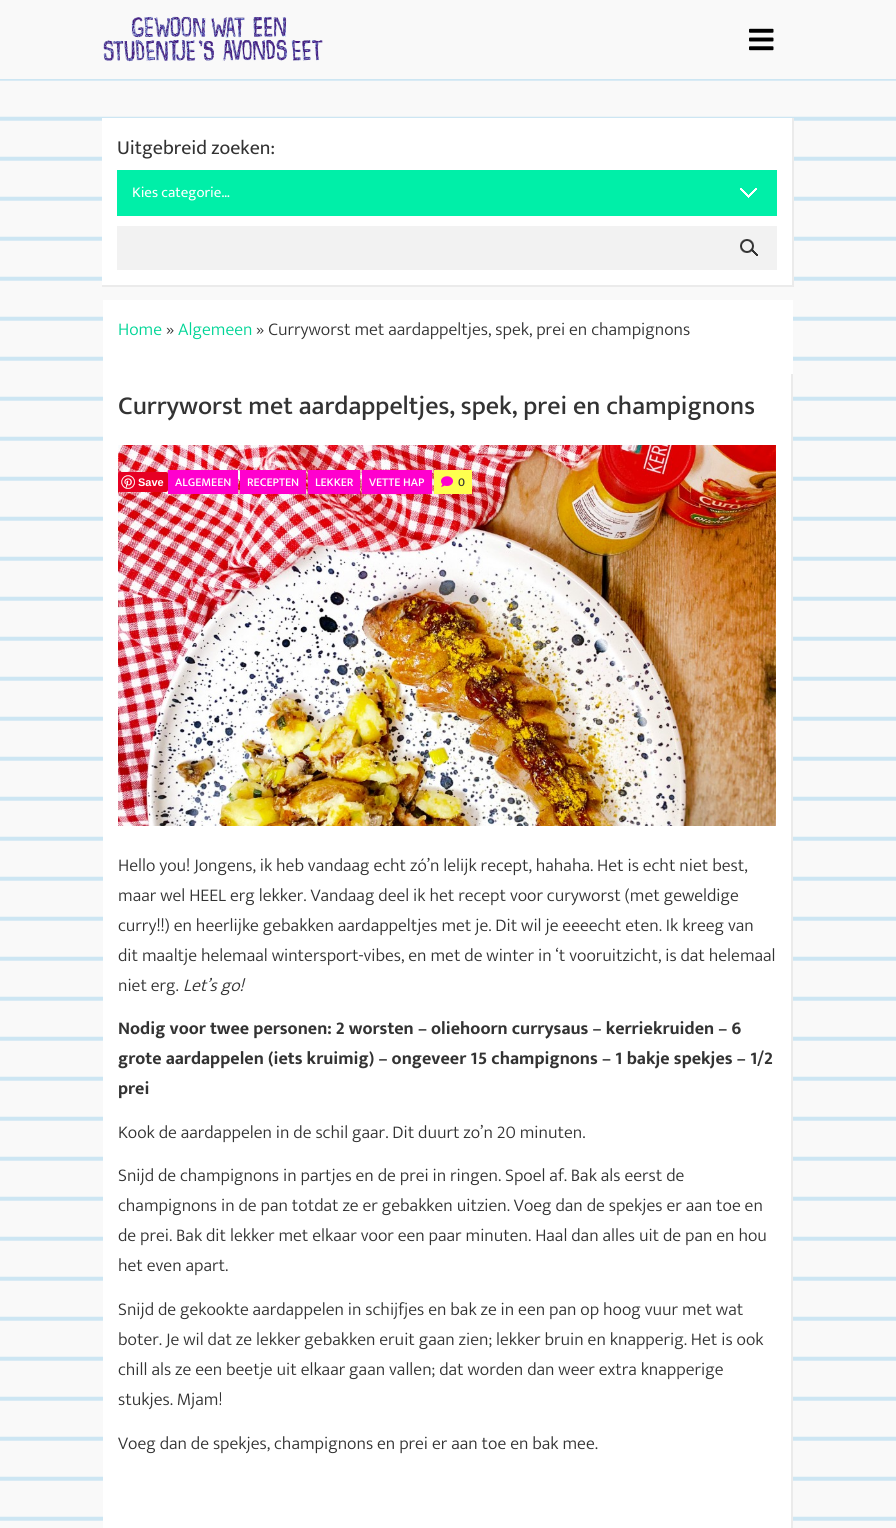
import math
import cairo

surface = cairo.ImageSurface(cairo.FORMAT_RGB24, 896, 1528)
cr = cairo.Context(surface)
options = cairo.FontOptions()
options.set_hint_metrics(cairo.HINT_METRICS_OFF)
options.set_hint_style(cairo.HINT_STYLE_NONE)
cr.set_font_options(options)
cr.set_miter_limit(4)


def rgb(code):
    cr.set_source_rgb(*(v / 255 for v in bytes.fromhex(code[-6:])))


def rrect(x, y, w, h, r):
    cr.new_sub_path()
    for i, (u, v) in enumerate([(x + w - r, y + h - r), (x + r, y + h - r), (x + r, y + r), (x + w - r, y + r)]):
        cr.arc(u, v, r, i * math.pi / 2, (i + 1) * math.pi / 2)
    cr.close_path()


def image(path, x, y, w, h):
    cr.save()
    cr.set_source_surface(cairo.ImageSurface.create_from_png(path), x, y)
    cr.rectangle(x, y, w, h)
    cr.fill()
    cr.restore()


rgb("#ffffff")
cr.paint()
image("img/1.png", 0, 79, 896, 1449)
rgb("#f9f9f9")
cr.rectangle(0, 0, 896, 79)
cr.fill()
image("img/2.png", 103, 16, 220, 47)
image("img/3.png", 749, 28, 25, 23)
rgb("#ffffff")
cr.rectangle(102, 118, 692, 169)
cr.fill()
rgb("#ebebeb")
cr.new_path()
cr.move_to(794, 118)
cr.line_to(794, 287)
cr.line_to(792, 285)
cr.line_to(792, 118)
cr.close_path()
cr.fill()
cr.set_source_rgba(0, 0, 0, 0.08)
cr.new_path()
cr.move_to(794, 287)
cr.line_to(102, 287)
cr.line_to(102, 285)
cr.line_to(792, 285)
cr.close_path()
cr.fill()
rgb("#00efa8")
cr.rectangle(117, 170, 660, 46)
cr.fill()
image("img/4.png", 740, 188, 17, 10)
rgb("#f2f2f2")
cr.rectangle(117, 226, 660, 44)
cr.fill()
image("img/5.png", 740, 239, 18, 17)
rgb("#ffffff")
cr.rectangle(103, 300, 690, 74)
cr.fill()
cr.rectangle(103, 374, 688, 1154)
cr.fill()
rgb("#ebebeb")
cr.new_path()
cr.move_to(793, 374)
cr.line_to(793, 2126)
cr.line_to(791, 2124)
cr.line_to(791, 374)
cr.close_path()
cr.fill()
image("img/6.png", 118, 445, 658, 381)
rgb("#e60023")
rrect(118, 472, 50, 20, 2)
cr.fill()
image("img/7.png", 121, 475, 14, 14)
for x, y, w, h, color in [
    (168, 470, 70, 24, "#ff00ce"),
    (240, 470, 66, 24, "#ff00ce"),
    (308, 470, 52, 24, "#ff00ce"),
    (362, 470, 70, 24, "#ff00ce"),
    (434, 470, 38, 24, "#feff4f"),
]:
    rgb(color)
    cr.rectangle(x, y, w, h)
    cr.fill()
image("img/8.png", 441, 476, 12, 11)
cr.select_font_face("Mukta")
cr.set_font_size(20)
rgb("#333333")
cr.move_to(117, 154)
cr.show_text("Uitgebreid zoeken:")
cr.set_font_size(15)
rgb("#ffffff")
cr.move_to(132, 197)
cr.show_text("Kies categorie…")
cr.select_font_face("Mukta Light")
cr.set_font_size(18)
rgb("#00d596")
cr.move_to(118, 335)
cr.show_text("Home")
rgb("#333333")
cr.move_to(166, 335)
cr.show_text("»")
rgb("#00d596")
cr.move_to(178, 335)
cr.show_text("Algemeen")
rgb("#333333")
cr.move_to(256, 335)
cr.show_text("» Curryworst met aardappeltjes, spek, prei en champignons")
cr.select_font_face("Mukta Medium")
cr.set_font_size(26)
cr.move_to(118, 414)
cr.show_text("Curryworst met aardappeltjes, spek, prei en champignons")
cr.select_font_face("Liberation Sans", cairo.FONT_SLANT_NORMAL, cairo.FONT_WEIGHT_BOLD)
cr.set_font_size(11)
rgb("#ffffff")
cr.move_to(138, 486)
cr.show_text("Save")
cr.select_font_face("Mukta Medium")
cr.set_font_size(12)
for x, y, s in [
    (175, 486, "ALGEMEEN"),
    (247, 486, "RECEPTEN"),
    (315, 486, "LEKKER"),
    (369, 486, "VETTE HAP"),
]:
    cr.move_to(x, y)
    cr.show_text(s)
rgb("#333333")
cr.move_to(458, 486)
cr.show_text("0")
cr.select_font_face("Mukta Light")
cr.set_font_size(18)
for x, y, s in [
    (118, 871, "Hello you! Jongens, ik heb vandaag echt zó’n lelijk recept, hahaha. Het is echt niet best,"),
    (118, 901, "maar wel HEEL erg lekker. Vandaag deel ik het recept voor curyworst (met geweldige"),
    (118, 931, "curry!!) en heerlijke gebakken aardappeltjes met je. Dit wil je eeeecht eten. Ik kreeg van"),
    (118, 961, "dit maaltje helemaal wintersport-vibes, en met de winter in ‘t vooruitzicht, is dat helemaal"),
    (118, 991, "niet erg."),
]:
    cr.move_to(x, y)
    cr.show_text(s)
cr.select_font_face("Mukta Light", cairo.FONT_SLANT_ITALIC)
cr.move_to(183, 991)
cr.show_text("Let’s go!")
cr.select_font_face("Mukta", cairo.FONT_SLANT_NORMAL, cairo.FONT_WEIGHT_BOLD)
for x, y, s in [
    (118, 1034, "Nodig voor twee personen: 2 worsten – oliehoorn currysaus – kerriekruiden – 6"),
    (118, 1064, "grote aardappelen (iets kruimig) – ongeveer 15 champignons – 1 bakje spekjes – 1/2"),
    (118, 1094, "prei"),
]:
    cr.move_to(x, y)
    cr.show_text(s)
cr.select_font_face("Mukta Light")
for x, y, s in [
    (118, 1138, "Kook de aardappelen in de schil gaar. Dit duurt zo’n 20 minuten."),
    (118, 1181, "Snijd de champignons in partjes en de prei in ringen. Spoel af. Bak als eerst de"),
    (118, 1211, "champignons in de pan totdat ze er gebakken uitzien. Voeg dan de spekjes er aan toe en"),
    (118, 1241, "de prei. Bak dit lekker met elkaar voor een paar minuten. Haal dan alles uit de pan en hou"),
    (118, 1271, "het even apart."),
    (118, 1315, "Snijd de gekookte aardappelen in schijfjes en bak ze in een pan op hoog vuur met wat"),
    (118, 1345, "boter. Je wil dat ze lekker gebakken eruit gaan zien; lekker bruin en knapperig. Het is ook"),
    (118, 1375, "chill als ze een beetje uit elkaar gaan vallen; dat worden dan weer extra knapperige"),
    (118, 1405, "stukjes. Mjam!"),
    (118, 1449, "Voeg dan de spekjes, champignons en prei er aan toe en bak mee."),
]:
    cr.move_to(x, y)
    cr.show_text(s)
surface.write_to_png("page.png")
